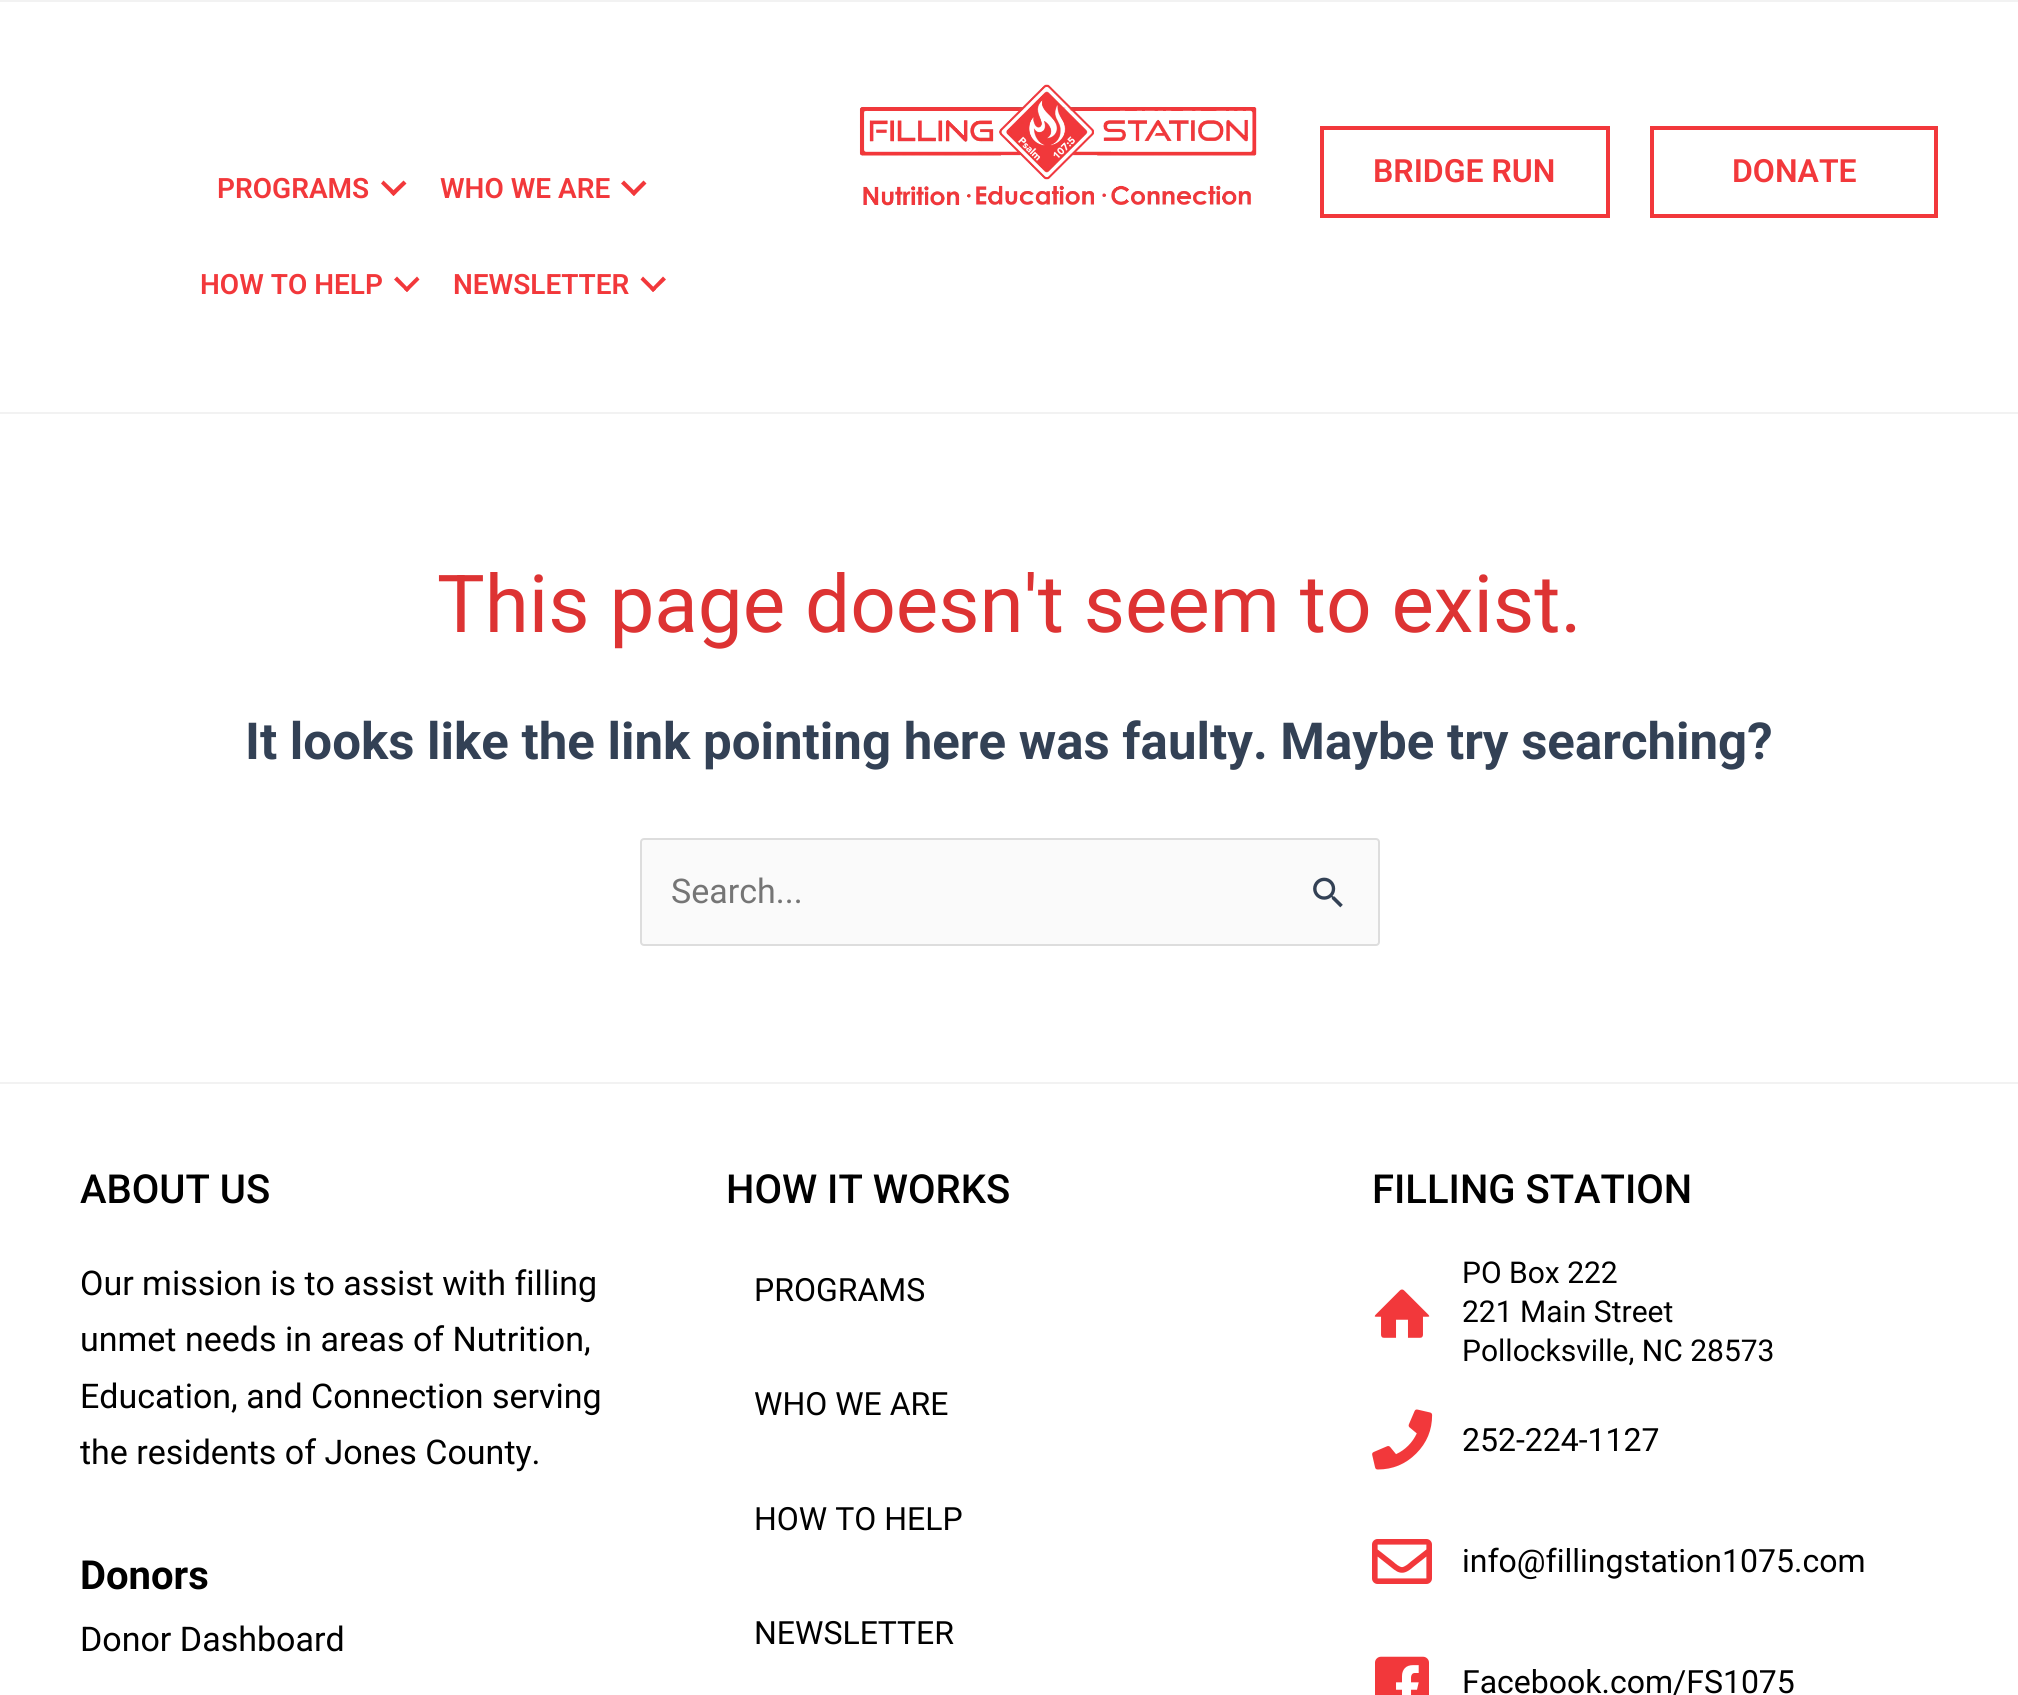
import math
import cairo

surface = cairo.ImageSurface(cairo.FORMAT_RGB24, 2018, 1695)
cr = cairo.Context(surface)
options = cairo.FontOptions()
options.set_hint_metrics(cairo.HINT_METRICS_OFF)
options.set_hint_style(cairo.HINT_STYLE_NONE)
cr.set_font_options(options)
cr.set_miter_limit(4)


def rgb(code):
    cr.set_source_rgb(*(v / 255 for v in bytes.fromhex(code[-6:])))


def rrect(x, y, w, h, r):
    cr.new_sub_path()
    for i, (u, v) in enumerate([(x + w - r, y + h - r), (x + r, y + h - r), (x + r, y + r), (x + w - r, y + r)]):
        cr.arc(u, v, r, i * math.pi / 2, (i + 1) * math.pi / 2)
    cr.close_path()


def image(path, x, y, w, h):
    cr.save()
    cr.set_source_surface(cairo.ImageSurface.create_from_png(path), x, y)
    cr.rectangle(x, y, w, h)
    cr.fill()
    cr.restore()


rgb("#ffffff")
cr.paint()
rgb("#f2f2f2")
cr.rectangle(0, 0, 2018, 2)
cr.fill()
cr.rectangle(0, 412, 2018, 2)
cr.fill()
image("img/1.png", 859, 84, 398, 122)
cr.rectangle(1322, 128, 286, 88)
rgb("#f2383b")
cr.set_line_width(4)
cr.stroke()
cr.rectangle(1652, 128, 284, 88)
cr.stroke()
cr.new_path()
cr.move_to(403.5, 180.5)
cr.line_to(406.5, 183.5)
cr.line_to(393.5, 196)
cr.line_to(390.5, 193)
cr.close_path()
cr.fill()
cr.new_path()
cr.move_to(383.5, 180.5)
cr.line_to(396.5, 193)
cr.line_to(393.5, 196)
cr.line_to(381, 183.5)
cr.close_path()
cr.fill()
cr.new_path()
cr.move_to(643.5, 180.5)
cr.line_to(646.5, 183.5)
cr.line_to(634, 196)
cr.line_to(631, 193)
cr.close_path()
cr.fill()
cr.new_path()
cr.move_to(624, 180.5)
cr.line_to(636.5, 193)
cr.line_to(634, 196)
cr.line_to(621, 183.5)
cr.close_path()
cr.fill()
cr.new_path()
cr.move_to(417, 276.5)
cr.line_to(419.5, 279.5)
cr.line_to(407, 292)
cr.line_to(404, 289.5)
cr.close_path()
cr.fill()
cr.new_path()
cr.move_to(397, 276.5)
cr.line_to(409.5, 289.5)
cr.line_to(407, 292)
cr.line_to(394, 279.5)
cr.close_path()
cr.fill()
cr.new_path()
cr.move_to(663, 276.5)
cr.line_to(666, 279.5)
cr.line_to(653, 292)
cr.line_to(650.5, 289.5)
cr.close_path()
cr.fill()
cr.new_path()
cr.move_to(643, 276.5)
cr.line_to(656, 289.5)
cr.line_to(653, 292)
cr.line_to(640.5, 279.5)
cr.close_path()
cr.fill()
rgb("#fafafa")
rrect(641, 839, 738, 106, 3)
cr.fill_preserve()
rgb("#dddddd")
cr.set_line_width(2)
cr.stroke()
image("img/2.png", 1313, 877, 30, 31)
rgb("#f2f2f2")
cr.rectangle(0, 1082, 2018, 2)
cr.fill()
image("img/3.png", 1374, 1289, 56, 49)
image("img/4.png", 1372, 1409, 61, 61)
image("img/5.png", 1372, 1539, 60, 45)
image("img/6.png", 1375, 1656, 54, 39)
cr.select_font_face("Roboto SemiBold")
cr.set_font_size(32)
rgb("#f2383b")
cr.move_to(1373, 182)
cr.show_text("BRIDGE RUN")
cr.move_to(1732, 182)
cr.show_text("DONATE")
cr.set_font_size(28)
for x, y, s in [
    (217, 198, "PROGRAMS"),
    (440, 198, "WHO WE ARE"),
    (200, 294, "HOW TO HELP"),
    (453, 294, "NEWSLETTER"),
]:
    cr.move_to(x, y)
    cr.show_text(s)
cr.select_font_face("Roboto")
cr.set_font_size(80)
rgb("#dd3333")
cr.move_to(437, 632)
cr.show_text("This page doesn't seem to exist.")
cr.select_font_face("Roboto", cairo.FONT_SLANT_NORMAL, cairo.FONT_WEIGHT_BOLD)
cr.set_font_size(51)
rgb("#334155")
cr.move_to(245, 759)
cr.show_text("It looks like the link pointing here was faulty. Maybe try searching?")
cr.select_font_face("Roboto")
cr.set_font_size(34)
rgb("#757575")
cr.move_to(671, 903)
cr.show_text("Search...")
cr.select_font_face("Roboto Medium")
cr.set_font_size(40)
rgb("#000000")
cr.move_to(80, 1203)
cr.show_text("ABOUT US")
cr.select_font_face("Roboto")
cr.set_font_size(34)
for x, y, s in [
    (80, 1295, "Our mission is to assist with filling"),
    (80, 1351, "unmet needs in areas of Nutrition,"),
    (80, 1408, "Education, and Connection serving"),
    (80, 1464, "the residents of Jones County."),
]:
    cr.move_to(x, y)
    cr.show_text(s)
cr.select_font_face("Roboto", cairo.FONT_SLANT_NORMAL, cairo.FONT_WEIGHT_BOLD)
cr.set_font_size(40)
cr.move_to(80, 1589)
cr.show_text("Donors")
cr.select_font_face("Roboto")
cr.set_font_size(34)
cr.move_to(80, 1651)
cr.show_text("Donor Dashboard")
cr.select_font_face("Roboto Medium")
cr.set_font_size(40)
cr.move_to(726, 1203)
cr.show_text("HOW IT WORKS")
cr.select_font_face("Roboto")
cr.set_font_size(32)
for x, y, s in [
    (754, 1301, "PROGRAMS"),
    (754, 1415, "WHO WE ARE"),
    (754, 1530, "HOW TO HELP"),
    (754, 1644, "NEWSLETTER"),
]:
    cr.move_to(x, y)
    cr.show_text(s)
cr.select_font_face("Roboto Medium")
cr.set_font_size(40)
cr.move_to(1372, 1203)
cr.show_text("FILLING STATION")
cr.select_font_face("Roboto")
cr.set_font_size(30)
for x, y, s in [
    (1462, 1283, "PO Box 222"),
    (1462, 1322, "221 Main Street"),
    (1462, 1361, "Pollocksville, NC 28573"),
]:
    cr.move_to(x, y)
    cr.show_text(s)
cr.set_font_size(32)
for x, y, s in [
    (1462, 1451, "252-224-1127"),
    (1462, 1572, "info@fillingstation1075.com"),
    (1462, 1693, "Facebook.com/FS1075"),
]:
    cr.move_to(x, y)
    cr.show_text(s)
surface.write_to_png("page.png")
